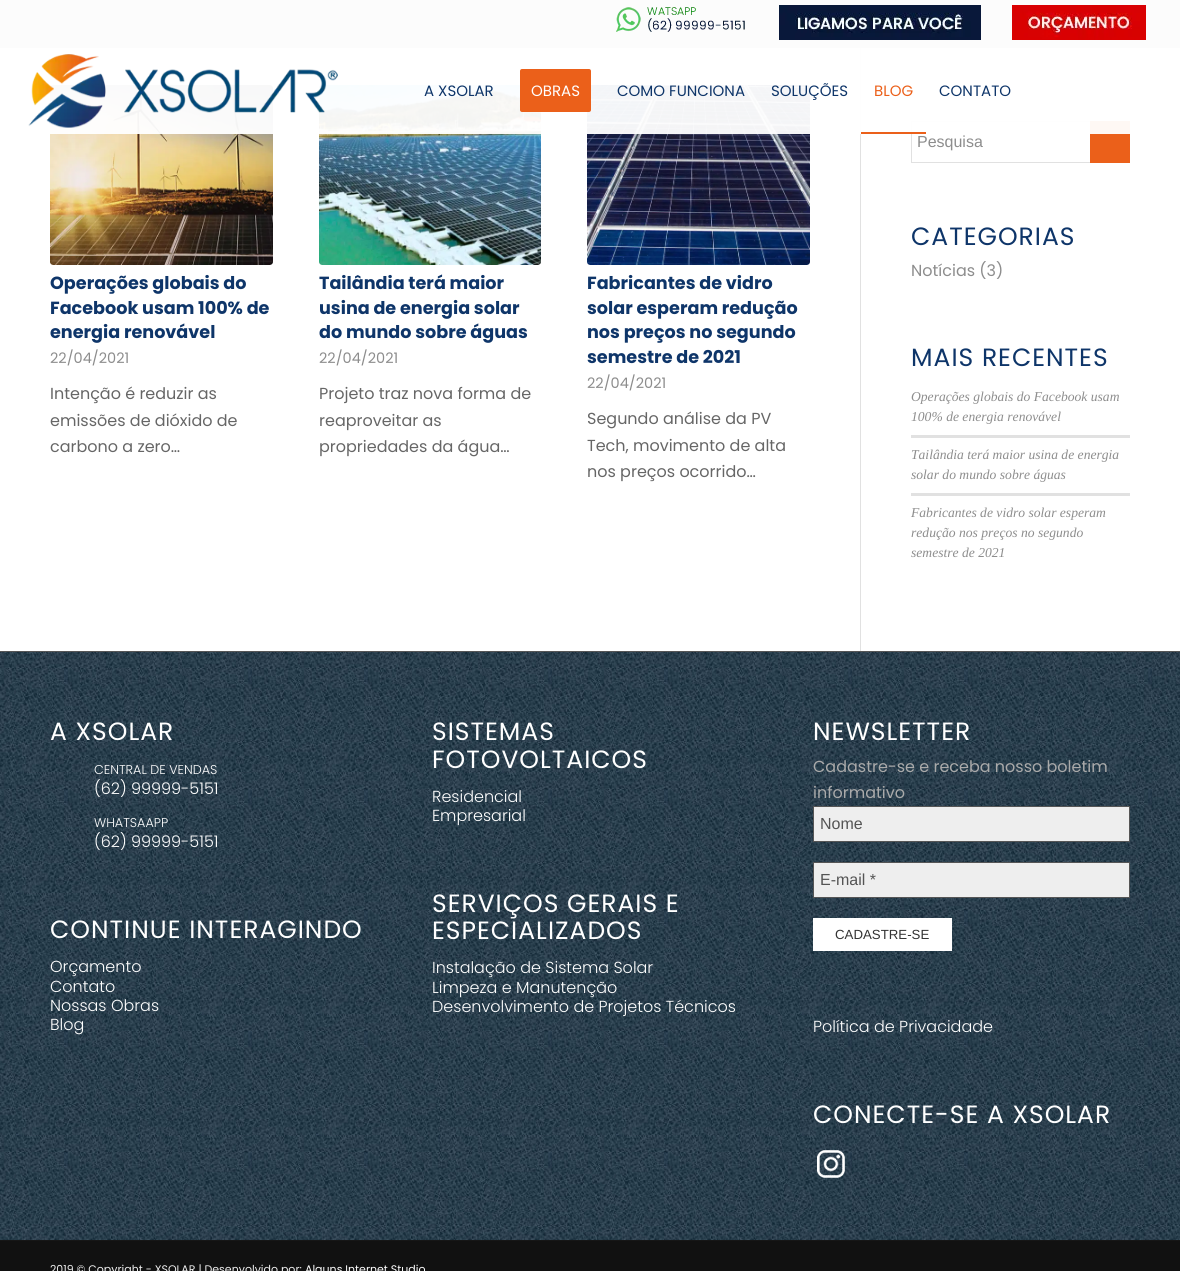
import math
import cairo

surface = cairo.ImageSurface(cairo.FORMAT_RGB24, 1180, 1271)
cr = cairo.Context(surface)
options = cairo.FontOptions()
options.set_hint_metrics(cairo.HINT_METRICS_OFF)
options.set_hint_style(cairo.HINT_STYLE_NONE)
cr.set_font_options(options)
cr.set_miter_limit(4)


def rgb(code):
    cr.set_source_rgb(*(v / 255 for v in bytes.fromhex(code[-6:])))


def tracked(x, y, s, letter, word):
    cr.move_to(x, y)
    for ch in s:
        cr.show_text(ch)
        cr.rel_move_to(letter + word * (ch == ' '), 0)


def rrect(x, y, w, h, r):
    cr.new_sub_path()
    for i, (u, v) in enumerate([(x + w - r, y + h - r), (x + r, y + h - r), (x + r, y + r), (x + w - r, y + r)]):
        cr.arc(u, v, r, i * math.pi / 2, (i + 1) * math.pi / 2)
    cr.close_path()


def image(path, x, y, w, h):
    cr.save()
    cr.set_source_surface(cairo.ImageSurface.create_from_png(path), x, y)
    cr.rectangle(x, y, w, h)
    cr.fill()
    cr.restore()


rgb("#ffffff")
cr.paint()
rgb("#fcfcfc")
cr.rectangle(0, 0, 1180, 48)
cr.fill()
image("img/1.png", 616, 7, 129, 25)
image("img/2.png", 779, 5, 202, 35)
image("img/3.png", 1012, 5, 134, 35)
image("img/5.png", 50, 85, 223, 180)
image("img/6.png", 319, 85, 222, 180)
image("img/7.png", 587, 85, 223, 180)
rgb("#e1e1e1")
cr.rectangle(860, 48, 1, 603)
cr.fill()
cr.rectangle(911.5, 121.5, 218, 41)
cr.set_line_width(1)
cr.stroke()
rgb("#eb601a")
cr.rectangle(1090, 121, 40, 42)
cr.fill()
cr.set_source_rgba(1, 1, 1, 0.95)
cr.rectangle(50, 48, 1080, 86)
cr.fill()
image("img/4.png", 28, 54, 310, 74)
rgb("#eb601a")
rrect(521, 70, 69, 41, 1)
cr.fill_preserve()
cr.set_line_width(2)
cr.stroke()
for x, y, w, h, color in [
    (861, 132, 65, 2, "#eb601a"),
    (911, 435, 219, 3, "#e1e1e1"),
    (911, 493, 219, 3, "#e1e1e1"),
]:
    rgb(color)
    cr.rectangle(x, y, w, h)
    cr.fill()
image("img/8.png", 0, 652, 1180, 588)
rgb("#555555")
cr.rectangle(0, 651, 1180, 1)
cr.fill()
rgb("#eeeeee")
cr.rectangle(813.5, 806.5, 316, 35)
cr.fill_preserve()
rgb("#555555")
cr.set_line_width(1)
cr.stroke()
rgb("#eeeeee")
cr.rectangle(813.5, 862.5, 316, 35)
cr.fill_preserve()
rgb("#555555")
cr.stroke()
rgb("#ffffff")
cr.rectangle(813, 918, 139, 33)
cr.fill()
image("img/9.png", 817, 1150, 28, 28)
rgb("#111111")
cr.rectangle(0, 1241, 1180, 30)
cr.fill()
rgb("#161616")
cr.rectangle(0, 1240, 1180, 1)
cr.fill()
cr.select_font_face("Poppins")
cr.set_font_size(15)
rgb("#0e3569")
cr.move_to(424, 96)
cr.show_text("A XSOLAR")
rgb("#ffffff")
cr.move_to(531, 96)
cr.show_text("OBRAS")
rgb("#0e3569")
cr.move_to(617, 96)
cr.show_text("COMO FUNCIONA")
cr.move_to(771, 96)
cr.show_text("SOLUÇÕES")
rgb("#eb601a")
cr.move_to(874, 96)
cr.show_text("BLOG")
rgb("#0e3569")
cr.move_to(939, 96)
cr.show_text("CONTATO")
cr.select_font_face("Poppins", cairo.FONT_SLANT_NORMAL, cairo.FONT_WEIGHT_BOLD)
cr.set_font_size(17.6)
for x, y, s in [
    (50, 289, "Operações globais do"),
    (50, 314, "Facebook usam 100% de"),
    (50, 338, "energia renovável"),
]:
    cr.move_to(x, y)
    cr.show_text(s)
cr.select_font_face("Poppins")
cr.set_font_size(14.5)
rgb("#8d8d8d")
cr.move_to(50, 363)
cr.show_text("22/04/2021")
cr.set_font_size(16)
rgb("#666666")
for x, y, s in [
    (50, 399, "Intenção é reduzir as"),
    (50, 426, "emissões de dióxido de"),
    (50, 452, "carbono a zero…"),
]:
    cr.move_to(x, y)
    cr.show_text(s)
cr.select_font_face("Poppins", cairo.FONT_SLANT_NORMAL, cairo.FONT_WEIGHT_BOLD)
cr.set_font_size(17.6)
rgb("#0e3569")
for x, y, s in [
    (319, 289, "Tailândia terá maior"),
    (319, 314, "usina de energia solar"),
    (319, 338, "do mundo sobre águas"),
]:
    cr.move_to(x, y)
    cr.show_text(s)
cr.select_font_face("Poppins")
cr.set_font_size(14.5)
rgb("#8d8d8d")
cr.move_to(319, 363)
cr.show_text("22/04/2021")
cr.set_font_size(16)
rgb("#666666")
for x, y, s in [
    (319, 399, "Projeto traz nova forma de"),
    (319, 426, "reaproveitar as"),
    (319, 452, "propriedades da água…"),
]:
    cr.move_to(x, y)
    cr.show_text(s)
cr.select_font_face("Poppins", cairo.FONT_SLANT_NORMAL, cairo.FONT_WEIGHT_BOLD)
cr.set_font_size(17.6)
rgb("#0e3569")
for x, y, s in [
    (587, 289, "Fabricantes de vidro"),
    (587, 314, "solar esperam redução"),
    (587, 338, "nos preços no segundo"),
    (587, 363, "semestre de 2021"),
]:
    cr.move_to(x, y)
    cr.show_text(s)
cr.select_font_face("Poppins")
cr.set_font_size(14.5)
rgb("#8d8d8d")
cr.move_to(587, 388)
cr.show_text("22/04/2021")
cr.set_font_size(16)
rgb("#666666")
for x, y, s in [
    (587, 424, "Segundo análise da PV"),
    (587, 451, "Tech, movimento de alta"),
    (587, 477, "nos preços ocorrido…"),
]:
    cr.move_to(x, y)
    cr.show_text(s)
cr.select_font_face("Liberation Sans")
rgb("#8d8d8d")
cr.move_to(917, 147)
cr.show_text("Pesquisa")
cr.select_font_face("Poppins")
cr.set_font_size(25)
rgb("#0e3569")
tracked(911, 245, "CATEGORIAS", 1, 0)
cr.set_font_size(16)
rgb("#8d8d8d")
cr.move_to(911, 276)
cr.show_text("Notícias (3)")
cr.set_font_size(25)
rgb("#0e3569")
tracked(911, 366, "MAIS RECENTES", 1, 0)
cr.select_font_face("Liberation Serif", cairo.FONT_SLANT_ITALIC)
cr.set_font_size(13.6)
rgb("#8d8d8d")
for x, y, s in [
    (911, 401, "Operações globais do Facebook usam"),
    (911, 421, "100% de energia renovável"),
    (911, 459, "Tailândia terá maior usina de energia"),
    (911, 479, "solar do mundo sobre águas"),
    (911, 517, "Fabricantes de vidro solar esperam"),
    (911, 537, "redução nos preços no segundo"),
    (911, 557, "semestre de 2021"),
]:
    cr.move_to(x, y)
    cr.show_text(s)
cr.select_font_face("Poppins")
cr.set_font_size(25)
rgb("#ffffff")
tracked(50, 740, "A XSOLAR", 1, 0)
cr.select_font_face("Poppins Light")
cr.set_font_size(12.75)
cr.move_to(94, 774)
cr.show_text("CENTRAL DE VENDAS")
cr.set_font_size(16)
cr.move_to(94, 794)
cr.show_text("(62) 99999-5151")
cr.set_font_size(12.75)
cr.move_to(94, 827)
cr.show_text("WHATSAAPP")
cr.set_font_size(16)
cr.move_to(94, 847)
cr.show_text("(62) 99999-5151")
cr.select_font_face("Poppins")
cr.set_font_size(25)
tracked(50, 938, "CONTINUE INTERAGINDO", 1, 0)
cr.select_font_face("Poppins Light")
cr.set_font_size(16)
for x, y, s in [
    (50, 972, "Orçamento"),
    (50, 992, "Contato"),
    (50, 1011, "Nossas Obras"),
    (50, 1030, "Blog"),
]:
    cr.move_to(x, y)
    cr.show_text(s)
cr.select_font_face("Poppins")
cr.set_font_size(25)
tracked(432, 740, "SISTEMAS", 1, 0)
tracked(432, 768, "FOTOVOLTAICOS", 1, 0)
cr.select_font_face("Poppins Light")
cr.set_font_size(16)
cr.move_to(432, 802)
cr.show_text("Residencial")
cr.move_to(432, 821)
cr.show_text("Empresarial")
cr.select_font_face("Poppins")
cr.set_font_size(25)
tracked(432, 912, "SERVIÇOS GERAIS E", 1, 0)
tracked(432, 939, "ESPECIALIZADOS", 1, 0)
cr.select_font_face("Poppins Light")
cr.set_font_size(16)
for x, y, s in [
    (432, 973, "Instalação de Sistema Solar"),
    (432, 993, "Limpeza e Manutenção"),
    (432, 1012, "Desenvolvimento de Projetos Técnicos"),
]:
    cr.move_to(x, y)
    cr.show_text(s)
cr.select_font_face("Poppins")
cr.set_font_size(25)
tracked(813, 740, "NEWSLETTER", 1, 0)
cr.set_font_size(16)
rgb("#aaaaaa")
cr.move_to(813, 772)
cr.show_text("Cadastre-se e receba nosso boletim")
cr.move_to(813, 798)
cr.show_text("informativo")
cr.select_font_face("Liberation Sans")
rgb("#545454")
cr.move_to(820, 829)
cr.show_text("Nome")
cr.move_to(820, 885)
cr.show_text("E-mail *")
cr.set_font_size(13.25)
rgb("#333333")
cr.move_to(835, 939)
cr.show_text("CADASTRE-SE")
cr.select_font_face("Poppins Light")
cr.set_font_size(16)
rgb("#ffffff")
cr.move_to(813, 1032)
cr.show_text("Política de Privacidade")
cr.select_font_face("Poppins")
cr.set_font_size(25)
tracked(813, 1123, "CONECTE-SE A XSOLAR", 1, 0)
cr.set_font_size(11)
rgb("#eeeeee")
cr.move_to(50, 1273)
cr.show_text("2019 © Copyright - XSOLAR | Desenvolvido por:")
rgb("#ffffff")
cr.move_to(305, 1273)
cr.show_text("Alguns Internet Studio")
surface.write_to_png("page.png")
